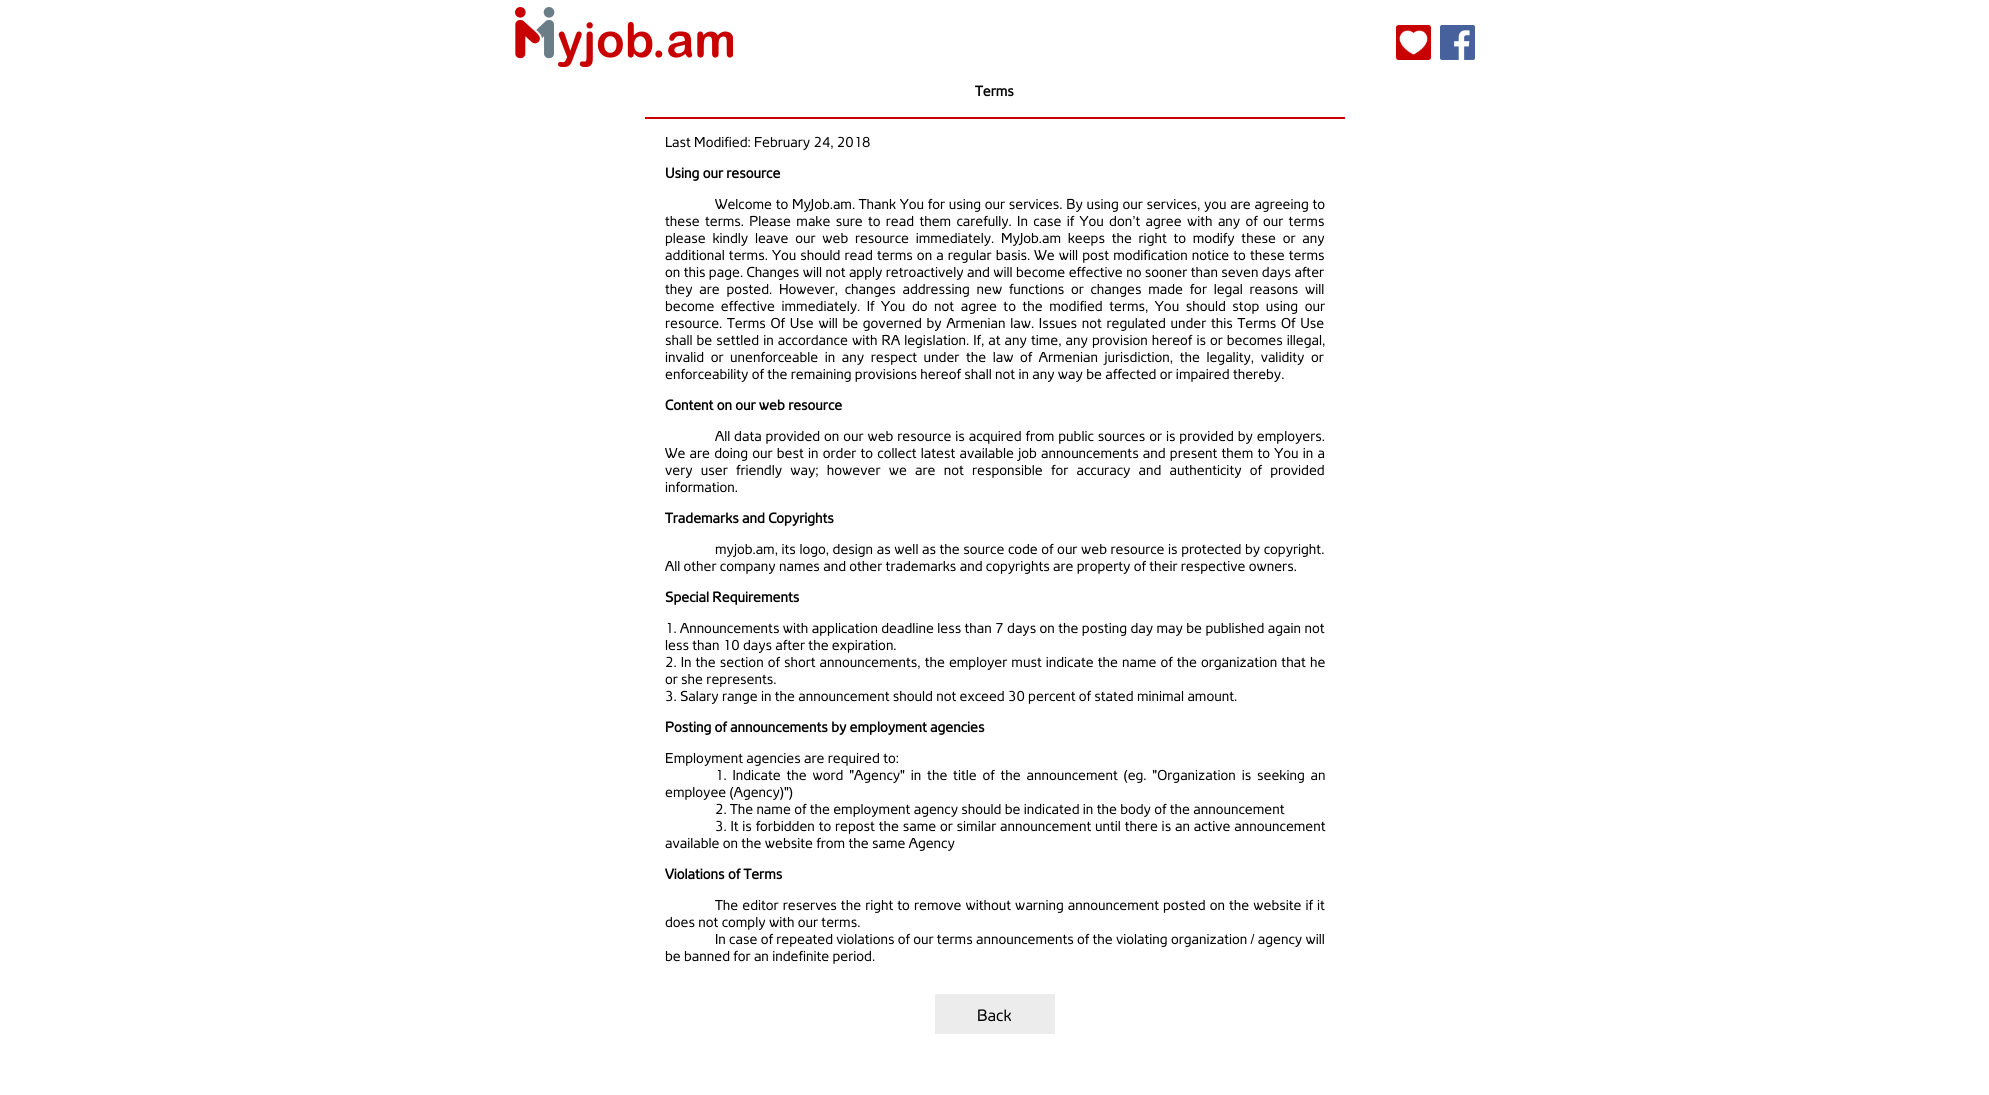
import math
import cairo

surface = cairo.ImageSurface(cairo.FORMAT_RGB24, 1989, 1095)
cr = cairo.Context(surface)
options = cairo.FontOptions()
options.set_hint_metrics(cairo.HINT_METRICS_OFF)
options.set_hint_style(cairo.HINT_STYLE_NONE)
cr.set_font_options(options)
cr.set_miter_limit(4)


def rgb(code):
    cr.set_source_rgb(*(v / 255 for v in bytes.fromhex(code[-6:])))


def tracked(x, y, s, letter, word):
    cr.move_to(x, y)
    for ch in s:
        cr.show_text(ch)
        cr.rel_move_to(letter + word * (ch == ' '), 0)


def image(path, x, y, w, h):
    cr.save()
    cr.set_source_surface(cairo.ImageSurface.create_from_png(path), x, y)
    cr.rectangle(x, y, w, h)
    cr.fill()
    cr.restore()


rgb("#ffffff")
cr.paint()
image("img/1.png", 515, 7, 218, 60)
image("img/2.png", 1396, 25, 35, 35)
image("img/3.png", 1440, 25, 35, 35)
rgb("#c80000")
cr.rectangle(645, 117, 700, 2)
cr.fill()
rgb("#ececec")
cr.rectangle(935, 994, 120, 40)
cr.fill()
cr.select_font_face("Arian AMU", cairo.FONT_SLANT_NORMAL, cairo.FONT_WEIGHT_BOLD)
cr.set_font_size(14)
rgb("#000000")
cr.move_to(975, 96)
cr.show_text("Terms")
cr.select_font_face("Arian AMU")
cr.move_to(665, 147)
cr.show_text("Last Modified: February 24, 2018")
cr.select_font_face("Arian AMU", cairo.FONT_SLANT_NORMAL, cairo.FONT_WEIGHT_BOLD)
cr.move_to(665, 178)
cr.show_text("Using our resource")
cr.select_font_face("Arian AMU")
tracked(715, 209, "Welcome to MyJob.am. Thank You for using our services. By using our services, you are agreeing to", 0, 0.4)
tracked(665, 226, "these terms. Please make sure to read them carefully. In case if You don’t agree with any of our terms", 0, 2)
tracked(665, 243, "please kindly leave our web resource immediately. MyJob.am keeps the right to modify these or any", 0, 3.4)
tracked(665, 260, "additional terms. You should read terms on a regular basis. We will post modification notice to these terms", 0, 0.8)
tracked(665, 277, "on this page. Changes will not apply retroactively and will become effective no sooner than seven days after", 0, 0.1)
tracked(665, 294, "they are posted. However, changes addressing new functions or changes made for legal reasons will", 0, 3.4)
tracked(665, 311, "become effective immediately. If You do not agree to the modified terms, You should stop using our", 0, 3.25)
tracked(665, 328, "resource. Terms Of Use will be governed by Armenian law. Issues not regulated under this Terms Of Use", 0, 1.4)
tracked(665, 345, "shall be settled in accordance with RA legislation. If, at any time, any provision hereof is or becomes illegal,", 0, 0.75)
tracked(665, 362, "invalid or unenforceable in any respect under the law of Armenian jurisdiction, the legality, validity or", 0, 3.25)
cr.move_to(665, 379)
cr.show_text("enforceability of the remaining provisions hereof shall not in any way be affected or impaired thereby.")
cr.select_font_face("Arian AMU", cairo.FONT_SLANT_NORMAL, cairo.FONT_WEIGHT_BOLD)
cr.move_to(665, 410)
cr.show_text("Content on our web resource")
cr.select_font_face("Arian AMU")
tracked(715, 441, "All data provided on our web resource is acquired from public sources or is provided by employers.", 0, 0.6)
tracked(665, 458, "We are doing our best in order to collect latest available job announcements and present them to You in a", 0, 0.9)
tracked(665, 475, "very user friendly way; however we are not responsible for accuracy and authenticity of provided", 0, 4.9)
cr.move_to(665, 492)
cr.show_text("information.")
cr.select_font_face("Arian AMU", cairo.FONT_SLANT_NORMAL, cairo.FONT_WEIGHT_BOLD)
cr.move_to(665, 523)
cr.show_text("Trademarks and Copyrights")
cr.select_font_face("Arian AMU")
tracked(715, 554, "myjob.am, its logo, design as well as the source code of our web resource is protected by copyright.", 0, 0.25)
cr.move_to(665, 571)
cr.show_text("All other company names and other trademarks and copyrights are property of their respective owners.")
cr.select_font_face("Arian AMU", cairo.FONT_SLANT_NORMAL, cairo.FONT_WEIGHT_BOLD)
cr.move_to(665, 602)
cr.show_text("Special Requirements")
cr.select_font_face("Arian AMU")
tracked(665, 633, "1. Announcements with application deadline less than 7 days on the posting day may be published again not", 0, 0.1)
cr.move_to(665, 650)
cr.show_text("less than 10 days after the expiration.")
tracked(665, 667, "2. In the section of short announcements, the employer must indicate the name of the organization that he", 0, 0.75)
cr.move_to(665, 684)
cr.show_text("or she represents.")
cr.move_to(665, 701)
cr.show_text("3. Salary range in the announcement should not exceed 30 percent of stated minimal amount.")
cr.select_font_face("Arian AMU", cairo.FONT_SLANT_NORMAL, cairo.FONT_WEIGHT_BOLD)
cr.move_to(665, 732)
cr.show_text("Posting of announcements by employment agencies")
cr.select_font_face("Arian AMU")
cr.move_to(665, 763)
cr.show_text("Employment agencies are required to:")
tracked(715, 780, "1. Indicate the word \"Agency\" in the title of the announcement (eg. \"Organization is seeking an", 0, 2.5)
cr.move_to(665, 797)
cr.show_text("employee (Agency)\")")
cr.move_to(715, 814)
cr.show_text("2. The name of the employment agency should be indicated in the body of the announcement")
tracked(715, 831, "3. It is forbidden to repost the same or similar announcement until there is an active announcement", 0, 0.5)
cr.move_to(665, 848)
cr.show_text("available on the website from the same Agency")
cr.select_font_face("Arian AMU", cairo.FONT_SLANT_NORMAL, cairo.FONT_WEIGHT_BOLD)
cr.move_to(665, 879)
cr.show_text("Violations of Terms")
cr.select_font_face("Arian AMU")
tracked(715, 910, "The editor reserves the right to remove without warning announcement posted on the website if it", 0, 0.75)
for x, y, s in [
    (665, 927, "does not comply with our terms."),
    (715, 944, "In case of repeated violations of our terms announcements of the violating organization / agency will"),
    (665, 961, "be banned for an indefinite period."),
]:
    cr.move_to(x, y)
    cr.show_text(s)
cr.set_font_size(16)
cr.move_to(977, 1021)
cr.show_text("Back")
surface.write_to_png("page.png")
